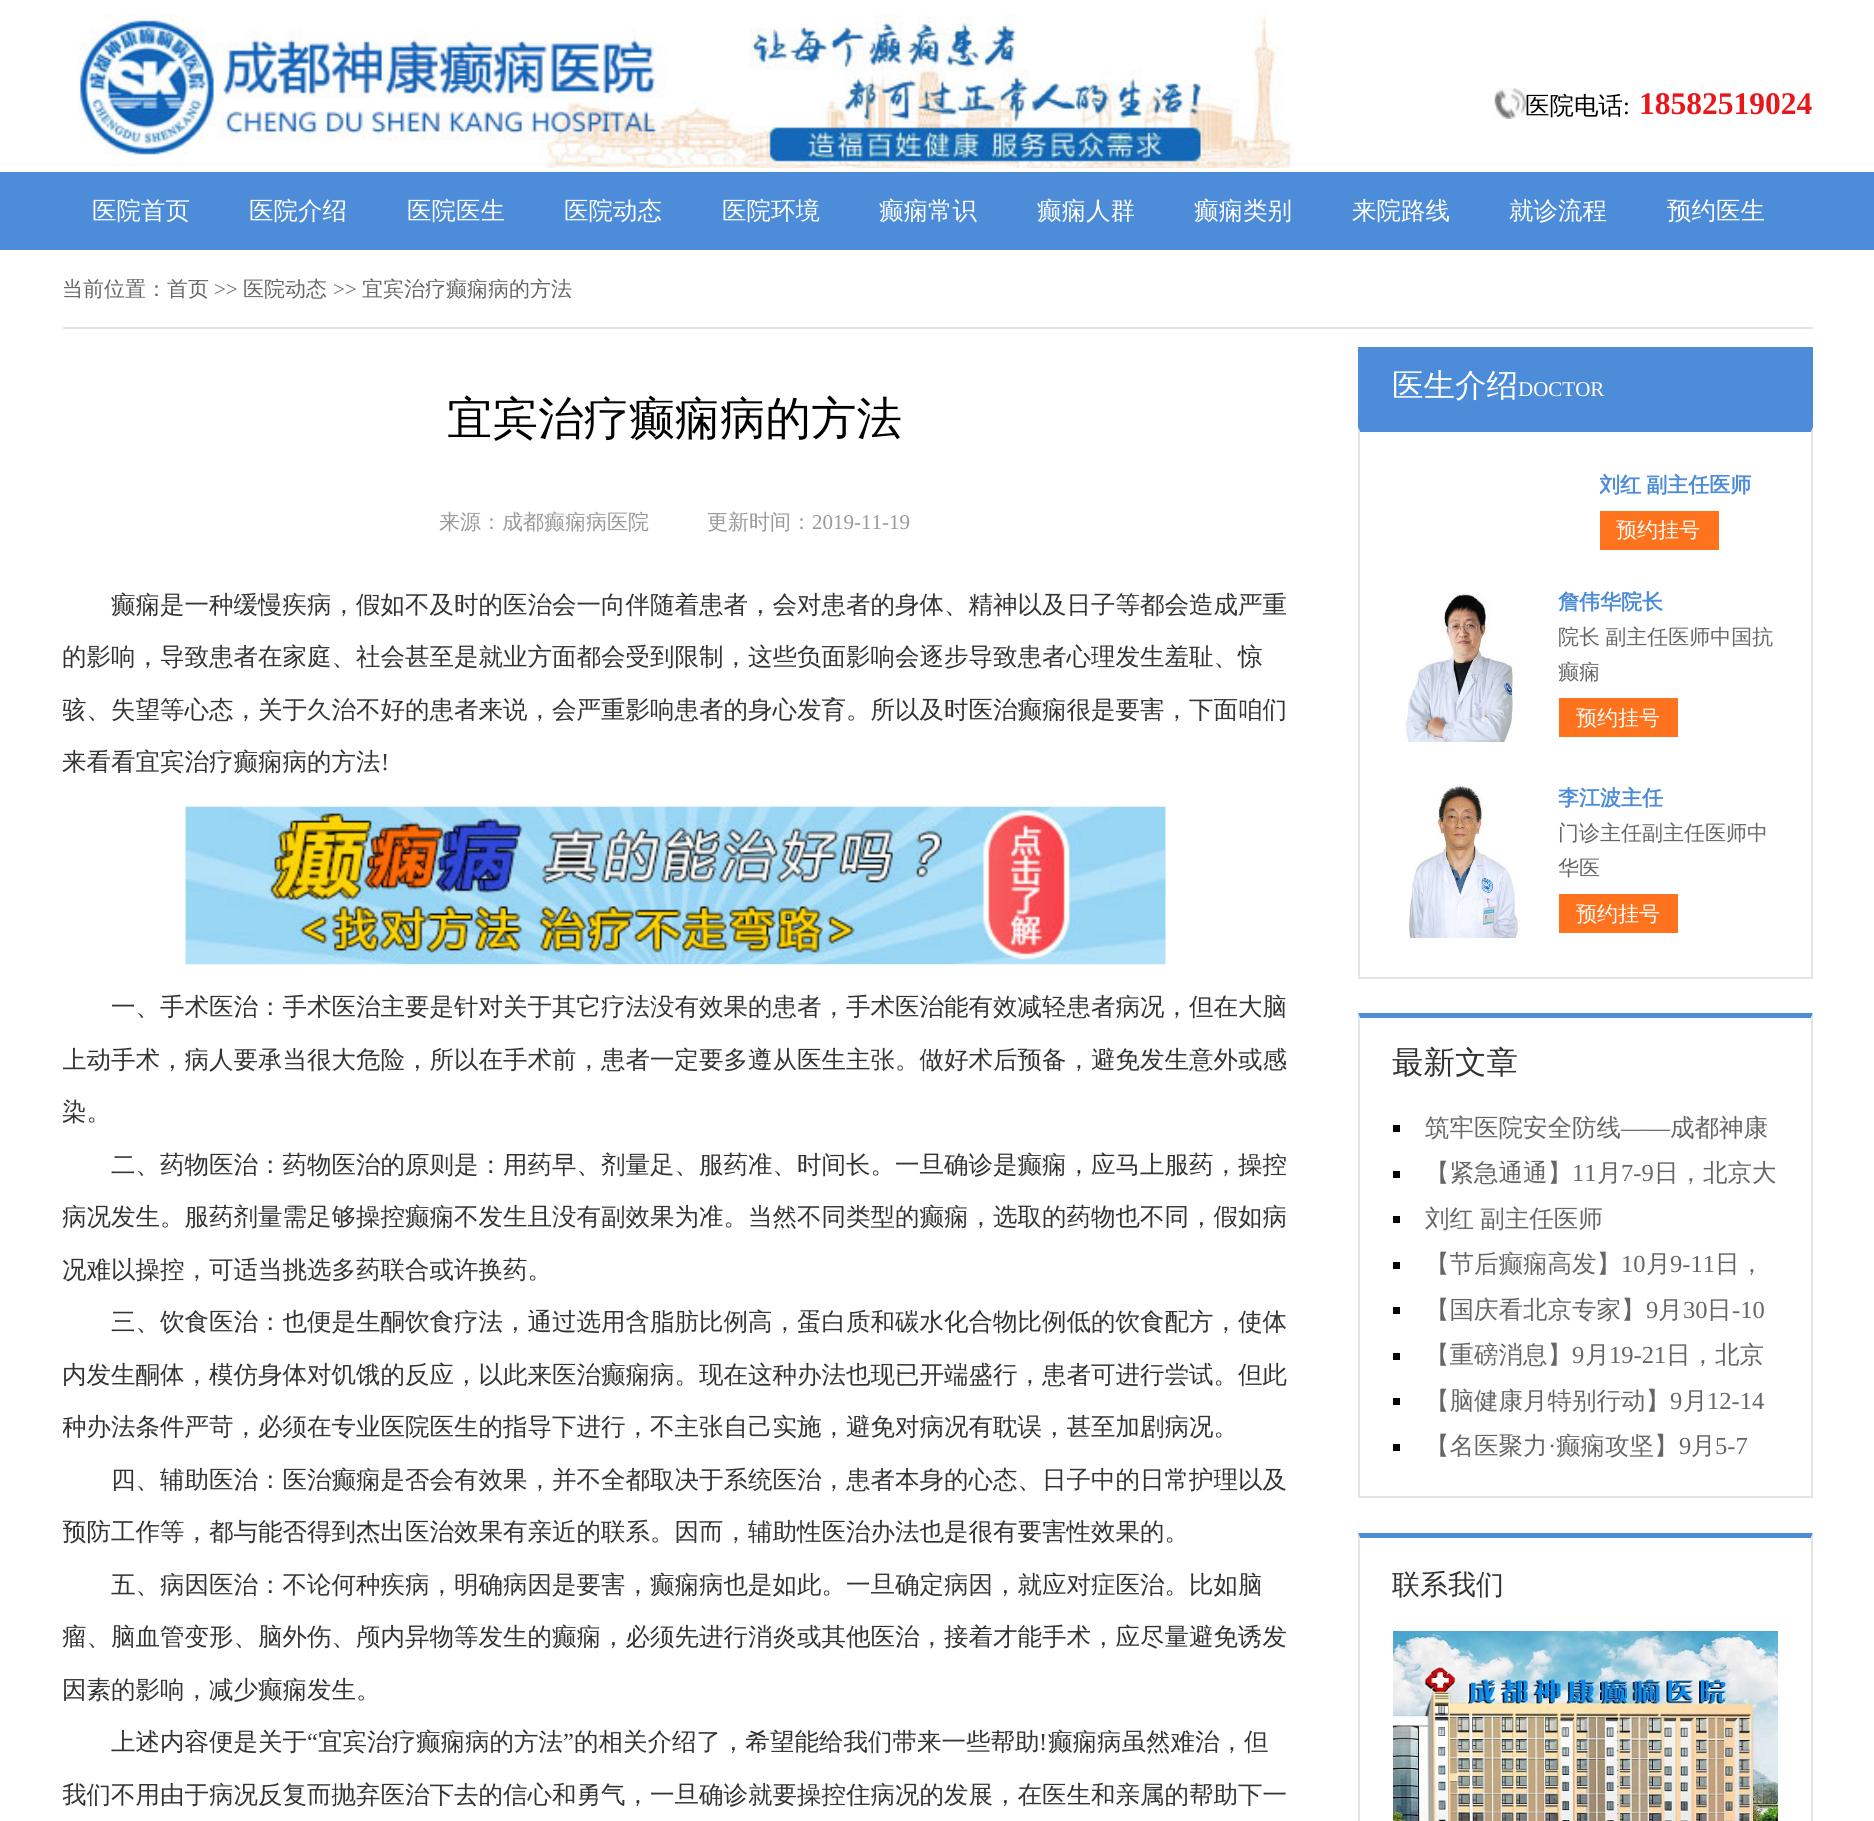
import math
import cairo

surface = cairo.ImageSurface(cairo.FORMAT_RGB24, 1874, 1821)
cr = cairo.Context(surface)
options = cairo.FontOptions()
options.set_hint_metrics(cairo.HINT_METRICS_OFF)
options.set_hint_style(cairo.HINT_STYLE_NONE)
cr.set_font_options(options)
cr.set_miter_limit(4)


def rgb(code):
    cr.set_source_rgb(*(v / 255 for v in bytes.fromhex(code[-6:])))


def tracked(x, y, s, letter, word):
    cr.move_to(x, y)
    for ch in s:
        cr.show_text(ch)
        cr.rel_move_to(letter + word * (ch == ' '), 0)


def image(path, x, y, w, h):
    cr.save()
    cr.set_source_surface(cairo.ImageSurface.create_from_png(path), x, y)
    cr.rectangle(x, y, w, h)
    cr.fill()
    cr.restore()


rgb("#ffffff")
cr.paint()
image("img/1.png", 77, 14, 1218, 154)
image("img/2.png", 1494, 87, 32, 32)
rgb("#4c8cd9")
cr.rectangle(0, 172, 1874, 78)
cr.fill()
rgb("#e4e4e4")
cr.rectangle(63, 327, 1750, 2)
cr.fill()
image("img/3.png", 185, 806, 981, 159)
rgb("#4c8cd9")
cr.rectangle(1358, 347, 455, 82)
cr.fill()
cr.new_path()
cr.move_to(1358, 427)
cr.line_to(1813, 427)
cr.line_to(1811, 432)
cr.line_to(1360, 432)
cr.close_path()
cr.fill()
rgb("#e4e4e4")
cr.new_path()
cr.move_to(1813, 427)
cr.line_to(1813, 978)
cr.line_to(1811, 976)
cr.line_to(1811, 432)
cr.close_path()
cr.fill()
cr.rectangle(1358, 977, 455, 2)
cr.fill()
cr.new_path()
cr.move_to(1358, 978)
cr.line_to(1358, 427)
cr.line_to(1360, 432)
cr.line_to(1360, 976)
cr.close_path()
cr.fill()
rgb("#ff731e")
cr.rectangle(1600, 511, 119, 39)
cr.fill()
image("img/4.png", 1404, 593, 109, 149)
cr.rectangle(1559, 698, 119, 39)
cr.fill()
image("img/5.png", 1409, 785, 111, 153)
cr.rectangle(1559, 894, 119, 39)
cr.fill()
rgb("#4c8cd9")
cr.new_path()
cr.move_to(1358, 1013)
cr.line_to(1813, 1013)
cr.line_to(1811, 1018)
cr.line_to(1360, 1018)
cr.close_path()
cr.fill()
rgb("#e4e4e4")
cr.new_path()
cr.move_to(1813, 1013)
cr.line_to(1813, 1498)
cr.line_to(1811, 1496)
cr.line_to(1811, 1018)
cr.close_path()
cr.fill()
cr.rectangle(1358, 1496, 455, 2)
cr.fill()
cr.new_path()
cr.move_to(1358, 1498)
cr.line_to(1358, 1013)
cr.line_to(1360, 1018)
cr.line_to(1360, 1496)
cr.close_path()
cr.fill()
for x, y, w, h, color in [
    (1393, 1125, 7, 7, "#000000"),
    (1393, 1171, 7, 7, "#000000"),
    (1393, 1216, 7, 7, "#000000"),
    (1393, 1262, 7, 7, "#000000"),
    (1393, 1307, 7, 7, "#000000"),
    (1393, 1353, 7, 7, "#000000"),
    (1393, 1398, 7, 7, "#000000"),
    (1393, 1444, 7, 7, "#000000"),
]:
    rgb(color)
    cr.rectangle(x, y, w, h)
    cr.fill()
rgb("#4c8cd9")
cr.new_path()
cr.move_to(1358, 1533)
cr.line_to(1813, 1533)
cr.line_to(1811, 1538)
cr.line_to(1360, 1538)
cr.close_path()
cr.fill()
rgb("#e4e4e4")
cr.new_path()
cr.move_to(1813, 1533)
cr.line_to(1813, 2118)
cr.line_to(1811, 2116)
cr.line_to(1811, 1538)
cr.close_path()
cr.fill()
cr.new_path()
cr.move_to(1358, 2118)
cr.line_to(1358, 1533)
cr.line_to(1360, 1538)
cr.line_to(1360, 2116)
cr.close_path()
cr.fill()
image("img/6.png", 1393, 1631, 385, 190)
cr.select_font_face("WenQuanYi Zen Hei Medium")
cr.set_font_size(24.5)
rgb("#000000")
cr.move_to(1525, 114)
cr.show_text("医院电话")
cr.select_font_face("Liberation Serif")
cr.move_to(1623, 114)
cr.show_text(":")
cr.select_font_face("Liberation Serif", cairo.FONT_SLANT_NORMAL, cairo.FONT_WEIGHT_BOLD)
cr.set_font_size(31.5)
rgb("#e8171a")
cr.move_to(1639, 114)
cr.show_text("18582519024")
cr.select_font_face("WenQuanYi Zen Hei Medium")
cr.set_font_size(24.5)
rgb("#ffffff")
for x, y, s in [
    (92, 219, "医院首页"),
    (249, 219, "医院介绍"),
    (407, 219, "医院医生"),
    (564, 219, "医院动态"),
    (722, 219, "医院环境"),
    (879, 219, "癫痫常识"),
    (1037, 219, "癫痫人群"),
    (1194, 219, "癫痫类别"),
    (1352, 219, "来院路线"),
    (1509, 219, "就诊流程"),
    (1667, 219, "预约医生"),
]:
    cr.move_to(x, y)
    cr.show_text(s)
cr.set_font_size(21)
rgb("#666666")
cr.move_to(62, 296)
cr.show_text("当前位置：首页")
cr.select_font_face("Liberation Serif")
cr.move_to(214, 296)
cr.show_text(">>")
cr.select_font_face("WenQuanYi Zen Hei Medium")
cr.move_to(243, 296)
cr.show_text("医院动态")
cr.select_font_face("Liberation Serif")
cr.move_to(333, 296)
cr.show_text(">>")
cr.select_font_face("WenQuanYi Zen Hei Medium")
cr.move_to(362, 296)
cr.show_text("宜宾治疗癫痫病的方法")
cr.set_font_size(45.5)
rgb("#000000")
cr.move_to(447, 434)
cr.show_text("宜宾治疗癫痫病的方法")
cr.set_font_size(21)
rgb("#999999")
cr.move_to(439, 529)
cr.show_text("来源：成都癫痫病医院")
cr.move_to(707, 529)
cr.show_text("更新时间：")
cr.select_font_face("Liberation Serif")
cr.move_to(812, 529)
cr.show_text("2019-11-19")
cr.select_font_face("WenQuanYi Zen Hei Medium")
cr.set_font_size(24.5)
rgb("#333333")
cr.move_to(111, 613)
cr.show_text("癫痫是一种缓慢疾病，假如不及时的医治会一向伴随着患者，会对患者的身体、精神以及日子等都会造成严重")
cr.move_to(62, 665)
cr.show_text("的影响，导致患者在家庭、社会甚至是就业方面都会受到限制，这些负面影响会逐步导致患者心理发生羞耻、惊")
cr.save()
cr.rectangle(63, 347, 1750, 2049)
cr.clip()
cr.move_to(62, 718)
cr.show_text("骇、失望等心态，关于久治不好的患者来说，会严重影响患者的身心发育。所以及时医治癫痫很是要害，下面咱们")
cr.restore()
cr.move_to(62, 770)
cr.show_text("来看看宜宾治疗癫痫病的方法")
cr.select_font_face("Liberation Serif")
cr.move_to(381, 770)
cr.show_text("!")
cr.select_font_face("WenQuanYi Zen Hei Medium")
cr.move_to(111, 1015)
cr.show_text("一、手术医治：手术医治主要是针对关于其它疗法没有效果的患者，手术医治能有效减轻患者病况，但在大脑")
cr.save()
cr.rectangle(63, 347, 1750, 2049)
cr.clip()
cr.move_to(62, 1068)
cr.show_text("上动手术，病人要承当很大危险，所以在手术前，患者一定要多遵从医生主张。做好术后预备，避免发生意外或感")
cr.restore()
for x, y, s in [
    (62, 1120, "染。"),
    (111, 1173, "二、药物医治：药物医治的原则是：用药早、剂量足、服药准、时间长。一旦确诊是癫痫，应马上服药，操控"),
    (62, 1225, "病况发生。服药剂量需足够操控癫痫不发生且没有副效果为准。当然不同类型的癫痫，选取的药物也不同，假如病"),
    (62, 1278, "况难以操控，可适当挑选多药联合或许换药。"),
    (111, 1330, "三、饮食医治：也便是生酮饮食疗法，通过选用含脂肪比例高，蛋白质和碳水化合物比例低的饮食配方，使体"),
    (62, 1383, "内发生酮体，模仿身体对饥饿的反应，以此来医治癫痫病。现在这种办法也现已开端盛行，患者可进行尝试。但此"),
]:
    cr.move_to(x, y)
    cr.show_text(s)
cr.save()
cr.rectangle(63, 347, 1750, 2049)
cr.clip()
cr.move_to(62, 1435)
cr.show_text("种办法条件严苛，必须在专业医院医生的指导下进行，不主张自己实施，避免对病况有耽误，甚至加剧病况。")
cr.restore()
cr.move_to(111, 1488)
cr.show_text("四、辅助医治：医治癫痫是否会有效果，并不全都取决于系统医治，患者本身的心态、日子中的日常护理以及")
cr.save()
cr.rectangle(63, 347, 1750, 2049)
cr.clip()
cr.move_to(62, 1540)
cr.show_text("预防工作等，都与能否得到杰出医治效果有亲近的联系。因而，辅助性医治办法也是很有要害性效果的。")
cr.restore()
for x, y, s in [
    (111, 1593, "五、病因医治：不论何种疾病，明确病因是要害，癫痫病也是如此。一旦确定病因，就应对症医治。比如脑"),
    (62, 1645, "瘤、脑血管变形、脑外伤、颅内异物等发生的癫痫，必须先进行消炎或其他医治，接着才能手术，应尽量避免诱发"),
    (62, 1698, "因素的影响，减少癫痫发生。"),
    (111, 1750, "上述内容便是关于"),
]:
    cr.move_to(x, y)
    cr.show_text(s)
cr.select_font_face("Liberation Serif")
cr.move_to(307, 1750)
cr.show_text("“")
cr.select_font_face("WenQuanYi Zen Hei Medium")
cr.move_to(318, 1750)
cr.show_text("宜宾治疗癫痫病的方法")
cr.select_font_face("Liberation Serif")
cr.move_to(563, 1750)
cr.show_text("”")
cr.select_font_face("WenQuanYi Zen Hei Medium")
cr.move_to(574, 1750)
cr.show_text("的相关介绍了，希望能给我们带来一些帮助")
cr.select_font_face("Liberation Serif")
cr.move_to(1039, 1750)
cr.show_text("!")
cr.select_font_face("WenQuanYi Zen Hei Medium")
cr.move_to(1048, 1750)
cr.show_text("癫痫病虽然难治，但")
cr.save()
cr.rectangle(63, 347, 1750, 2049)
cr.clip()
cr.move_to(62, 1803)
cr.show_text("我们不用由于病况反复而抛弃医治下去的信心和勇气，一旦确诊就要操控住病况的发展，在医生和亲属的帮助下一")
cr.restore()
cr.set_font_size(31.5)
rgb("#ffffff")
cr.move_to(1392, 396)
cr.show_text("医生介绍")
cr.select_font_face("Liberation Serif")
cr.set_font_size(21)
cr.move_to(1518, 396)
cr.show_text("DOCTOR")
cr.save()
cr.rectangle(1600, 467, 178, 83)
cr.clip()
cr.select_font_face("WenQuanYi Zen Hei", cairo.FONT_SLANT_NORMAL, cairo.FONT_WEIGHT_BOLD)
rgb("#4c8cd9")
tracked(1599, 492, "刘红 副主任医师", 0, -1)
cr.restore()
cr.select_font_face("WenQuanYi Zen Hei Medium")
cr.move_to(1616, 537)
cr.show_text("预约挂号")
cr.select_font_face("WenQuanYi Zen Hei", cairo.FONT_SLANT_NORMAL, cairo.FONT_WEIGHT_BOLD)
rgb("#4c8cd9")
cr.move_to(1558, 609)
cr.show_text("詹伟华院长")
cr.select_font_face("WenQuanYi Zen Hei Medium")
rgb("#666666")
tracked(1558, 644, "院长 副主任医师中国抗", 0, -1)
cr.move_to(1558, 679)
cr.show_text("癫痫")
rgb("#ffffff")
cr.move_to(1576, 725)
cr.show_text("预约挂号")
cr.select_font_face("WenQuanYi Zen Hei", cairo.FONT_SLANT_NORMAL, cairo.FONT_WEIGHT_BOLD)
rgb("#4c8cd9")
cr.move_to(1558, 805)
cr.show_text("李江波主任")
cr.select_font_face("WenQuanYi Zen Hei Medium")
rgb("#666666")
cr.move_to(1558, 840)
cr.show_text("门诊主任副主任医师中")
cr.move_to(1558, 875)
cr.show_text("华医")
rgb("#ffffff")
cr.move_to(1576, 921)
cr.show_text("预约挂号")
cr.set_font_size(31.5)
rgb("#333333")
cr.move_to(1392, 1073)
cr.show_text("最新文章")
cr.set_font_size(24.5)
rgb("#666666")
cr.move_to(1425, 1136)
cr.show_text("筑牢医院安全防线")
cr.select_font_face("Liberation Serif")
cr.move_to(1621, 1136)
cr.show_text("——")
cr.select_font_face("WenQuanYi Zen Hei Medium")
cr.move_to(1670, 1136)
cr.show_text("成都神康")
cr.move_to(1425, 1181)
cr.show_text("【紧急通通】")
cr.select_font_face("Liberation Serif")
cr.move_to(1572, 1181)
cr.show_text("11")
cr.select_font_face("WenQuanYi Zen Hei Medium")
cr.move_to(1597, 1181)
cr.show_text("月")
cr.select_font_face("Liberation Serif")
cr.move_to(1621, 1181)
cr.show_text("7-9")
cr.select_font_face("WenQuanYi Zen Hei Medium")
cr.move_to(1654, 1181)
cr.show_text("日，北京大")
tracked(1425, 1227, "刘红 副主任医师", 0, -1)
cr.move_to(1425, 1272)
cr.show_text("【节后癫痫高发】")
cr.select_font_face("Liberation Serif")
cr.move_to(1621, 1272)
cr.show_text("10")
cr.select_font_face("WenQuanYi Zen Hei Medium")
cr.move_to(1646, 1272)
cr.show_text("月")
cr.select_font_face("Liberation Serif")
cr.move_to(1670, 1272)
cr.show_text("9-11")
cr.select_font_face("WenQuanYi Zen Hei Medium")
cr.move_to(1715, 1272)
cr.show_text("日，")
cr.move_to(1425, 1318)
cr.show_text("【国庆看北京专家】")
cr.select_font_face("Liberation Serif")
cr.move_to(1646, 1318)
cr.show_text("9")
cr.select_font_face("WenQuanYi Zen Hei Medium")
cr.move_to(1658, 1318)
cr.show_text("月")
cr.select_font_face("Liberation Serif")
cr.move_to(1683, 1318)
cr.show_text("30")
cr.select_font_face("WenQuanYi Zen Hei Medium")
cr.move_to(1707, 1318)
cr.show_text("日")
cr.select_font_face("Liberation Serif")
cr.move_to(1732, 1318)
cr.show_text("-10")
cr.select_font_face("WenQuanYi Zen Hei Medium")
cr.move_to(1425, 1363)
cr.show_text("【重磅消息】")
cr.select_font_face("Liberation Serif")
cr.move_to(1572, 1363)
cr.show_text("9")
cr.select_font_face("WenQuanYi Zen Hei Medium")
cr.move_to(1585, 1363)
cr.show_text("月")
cr.select_font_face("Liberation Serif")
cr.move_to(1609, 1363)
cr.show_text("19-21")
cr.select_font_face("WenQuanYi Zen Hei Medium")
cr.move_to(1666, 1363)
cr.show_text("日，北京")
cr.move_to(1425, 1409)
cr.show_text("【脑健康月特别行动】")
cr.select_font_face("Liberation Serif")
cr.move_to(1670, 1409)
cr.show_text("9")
cr.select_font_face("WenQuanYi Zen Hei Medium")
cr.move_to(1683, 1409)
cr.show_text("月")
cr.select_font_face("Liberation Serif")
cr.move_to(1707, 1409)
cr.show_text("12-14")
cr.select_font_face("WenQuanYi Zen Hei Medium")
cr.move_to(1425, 1454)
cr.show_text("【名医聚力")
cr.select_font_face("Liberation Serif")
cr.move_to(1548, 1454)
cr.show_text("·")
cr.select_font_face("WenQuanYi Zen Hei Medium")
cr.move_to(1556, 1454)
cr.show_text("癫痫攻坚】")
cr.select_font_face("Liberation Serif")
cr.move_to(1679, 1454)
cr.show_text("9")
cr.select_font_face("WenQuanYi Zen Hei Medium")
cr.move_to(1691, 1454)
cr.show_text("月")
cr.select_font_face("Liberation Serif")
cr.move_to(1715, 1454)
cr.show_text("5-7")
cr.select_font_face("WenQuanYi Zen Hei Medium")
cr.set_font_size(28)
rgb("#333333")
cr.move_to(1392, 1594)
cr.show_text("联系我们")
surface.write_to_png("page.png")
